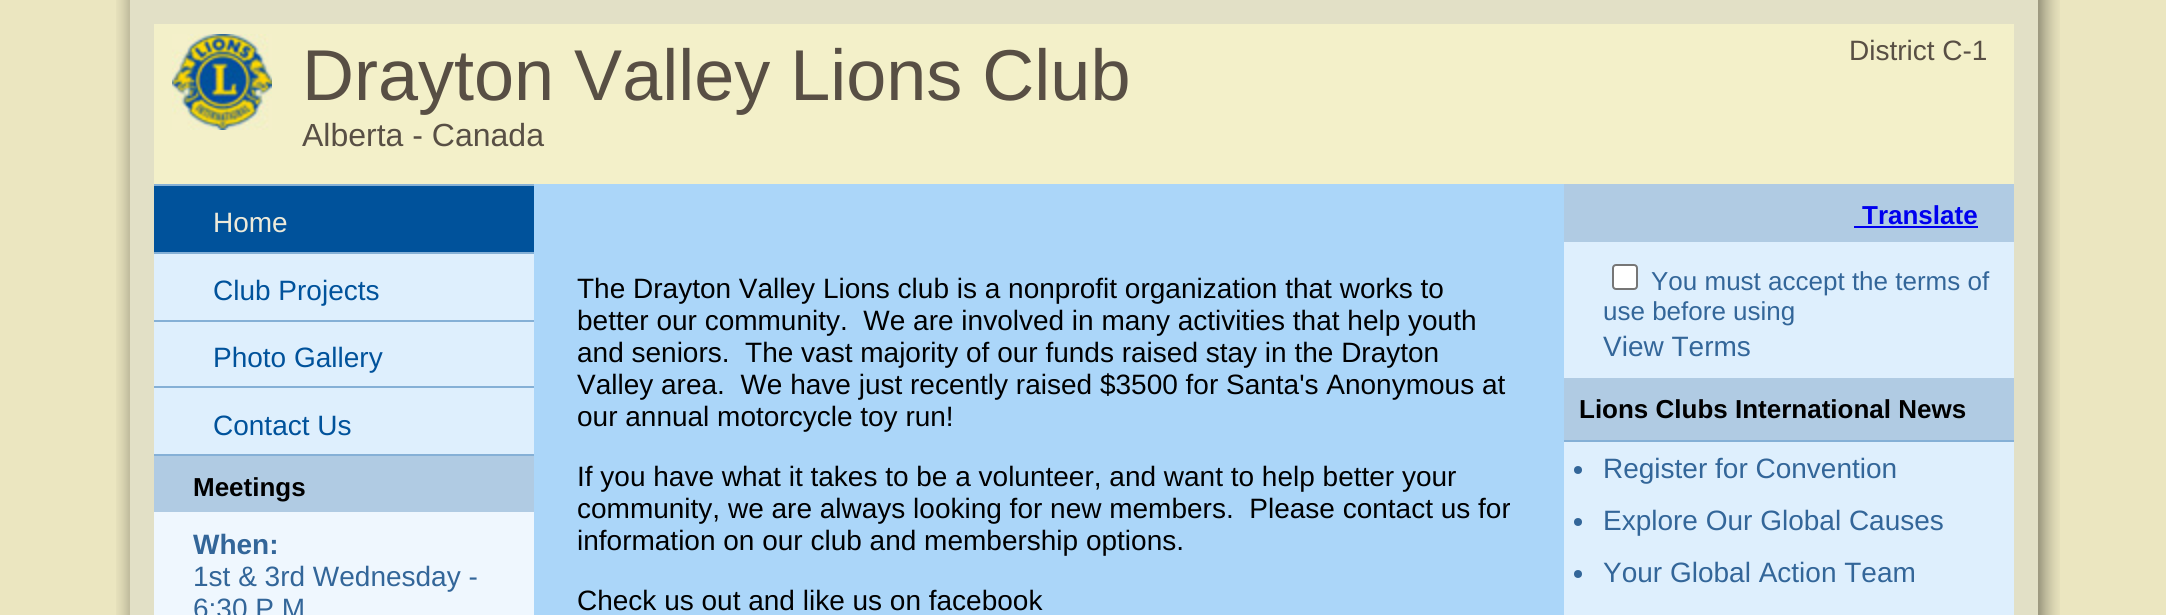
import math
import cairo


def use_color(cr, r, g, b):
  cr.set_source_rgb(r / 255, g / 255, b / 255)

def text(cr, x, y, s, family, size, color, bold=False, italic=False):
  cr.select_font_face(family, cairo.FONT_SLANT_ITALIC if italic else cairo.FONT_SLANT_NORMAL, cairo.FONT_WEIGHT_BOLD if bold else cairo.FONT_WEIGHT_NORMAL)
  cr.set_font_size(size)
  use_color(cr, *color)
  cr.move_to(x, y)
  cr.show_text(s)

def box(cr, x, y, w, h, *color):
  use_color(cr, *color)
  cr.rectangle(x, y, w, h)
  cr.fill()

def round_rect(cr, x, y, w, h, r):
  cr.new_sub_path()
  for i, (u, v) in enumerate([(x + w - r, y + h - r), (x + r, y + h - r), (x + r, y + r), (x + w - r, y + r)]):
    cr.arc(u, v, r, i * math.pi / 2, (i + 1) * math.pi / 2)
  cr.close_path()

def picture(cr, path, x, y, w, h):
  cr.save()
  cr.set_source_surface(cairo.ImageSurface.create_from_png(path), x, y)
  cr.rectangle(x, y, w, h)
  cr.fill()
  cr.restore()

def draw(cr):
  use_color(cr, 235, 230, 192)
  cr.paint()
  picture(cr, "img_01.png", 116, 0, 14, 615)
  box(cr, 130, 0, 1908, 615, 226, 224, 198)
  box(cr, 154, 24, 1860, 160, 243, 240, 201)
  picture(cr, "img_02.png", 172, 34, 100, 96)
  box(cr, 534, 184, 1030, 431, 171, 214, 249)
  box(cr, 154, 184, 380, 2, 133, 176, 214)
  box(cr, 154, 252, 380, 2, 133, 176, 214)
  box(cr, 154, 186, 380, 66, 0, 82, 155)
  box(cr, 154, 320, 380, 2, 133, 176, 214)
  box(cr, 154, 254, 380, 66, 222, 239, 253)
  box(cr, 154, 386, 380, 2, 133, 176, 214)
  box(cr, 154, 322, 380, 64, 222, 239, 253)
  box(cr, 154, 454, 380, 2, 133, 176, 214)
  box(cr, 154, 388, 380, 66, 222, 239, 253)
  box(cr, 154, 512, 380, 103, 239, 247, 254)
  box(cr, 154, 456, 380, 56, 176, 203, 227)
  box(cr, 1564, 242, 450, 136, 222, 239, 253)
  box(cr, 1564, 184, 450, 58, 176, 203, 227)
  box(cr, 1854, 226, 124, 2, 0, 0, 238)
  use_color(cr, 255, 255, 255)
  round_rect(cr, 1613, 265, 24, 24, 3)
  cr.fill_preserve()
  use_color(cr, 118, 118, 118)
  cr.stroke()
  box(cr, 1564, 442, 450, 173, 222, 239, 253)
  box(cr, 1564, 378, 450, 62, 176, 203, 227)
  box(cr, 1564, 440, 450, 2, 133, 176, 214)
  use_color(cr, 51, 102, 153)
  cr.arc(1578, 470, 4, 0, 2 * math.pi)
  cr.fill()
  cr.arc(1578, 522, 4, 0, 2 * math.pi)
  cr.fill()
  cr.arc(1578, 574, 4, 0, 2 * math.pi)
  cr.fill()
  picture(cr, "img_03.png", 2038, 0, 22, 615)
  text(cr, 302, 100, "Drayton Valley Lions Club", "Liberation Sans", 72, (88, 79, 68))
  text(cr, 302, 146, "Alberta - Canada", "Liberation Sans", 32, (88, 79, 68))
  text(cr, 1849, 60, "District C-1", "Liberation Sans", 28, (88, 79, 68))
  text(cr, 213, 232, "Home", "Liberation Sans", 28, (237, 234, 218))
  text(cr, 213, 300, "Club Projects", "Liberation Sans", 28, (0, 82, 155))
  text(cr, 213, 367, "Photo Gallery", "Liberation Sans", 28, (0, 82, 155))
  text(cr, 213, 435, "Contact Us", "Liberation Sans", 28, (0, 82, 155))
  text(cr, 193, 496, "Meetings", "Liberation Sans", 26, (0, 0, 0), bold=True)
  text(cr, 193, 554, "When:", "Liberation Sans", 28, (51, 102, 153), bold=True)
  text(cr, 193, 586, "1st & 3rd Wednesday -", "Liberation Sans", 28, (51, 102, 153))
  text(cr, 193, 618, "6:30 P.M", "Liberation Sans", 28, (51, 102, 153))
  text(cr, 577, 298, "The Drayton Valley Lions club is a nonprofit organization that works to", "Liberation Sans", 28, (0, 0, 0))
  text(cr, 577, 330, "better our community.  We are involved in many activities that help youth", "Liberation Sans", 28, (0, 0, 0))
  text(cr, 577, 362, "and seniors.  The vast majority of our funds raised stay in the Drayton", "Liberation Sans", 28, (0, 0, 0))
  text(cr, 577, 394, "Valley area.  We have just recently raised $3500 for Santa's Anonymous at", "Liberation Sans", 28, (0, 0, 0))
  text(cr, 577, 426, "our annual motorcycle toy run!", "Liberation Sans", 28, (0, 0, 0))
  text(cr, 577, 486, "If you have what it takes to be a volunteer, and want to help better your", "Liberation Sans", 28, (0, 0, 0))
  text(cr, 577, 518, "community, we are always looking for new members.  Please contact us for", "Liberation Sans", 28, (0, 0, 0))
  text(cr, 577, 550, "information on our club and membership options.", "Liberation Sans", 28, (0, 0, 0))
  text(cr, 577, 610, "Check us out and like us on facebook", "Liberation Sans", 28, (0, 0, 0))
  text(cr, 1862, 224, "Translate", "Liberation Sans", 26, (0, 0, 238), bold=True)
  text(cr, 1651, 290, "You must accept the terms of", "Liberation Sans", 26, (51, 102, 153))
  text(cr, 1603, 320, "use before using", "Liberation Sans", 26, (51, 102, 153))
  text(cr, 1603, 356, "View Terms", "Liberation Sans", 28, (51, 102, 153))
  text(cr, 1579, 418, "Lions Clubs International News", "Liberation Sans", 26, (0, 0, 0), bold=True)
  text(cr, 1603, 478, "Register for Convention", "Liberation Sans", 28, (51, 102, 153))
  text(cr, 1603, 530, "Explore Our Global Causes", "Liberation Sans", 28, (51, 102, 153))
  text(cr, 1603, 582, "Your Global Action Team", "Liberation Sans", 28, (51, 102, 153))


surface = cairo.ImageSurface(cairo.FORMAT_RGB24, 2166, 615)
cr = cairo.Context(surface)
options = cairo.FontOptions()
options.set_hint_metrics(cairo.HINT_METRICS_OFF)
options.set_hint_style(cairo.HINT_STYLE_NONE)
cr.set_font_options(options)
cr.set_miter_limit(4)
draw(cr)
surface.write_to_png("out.png")
